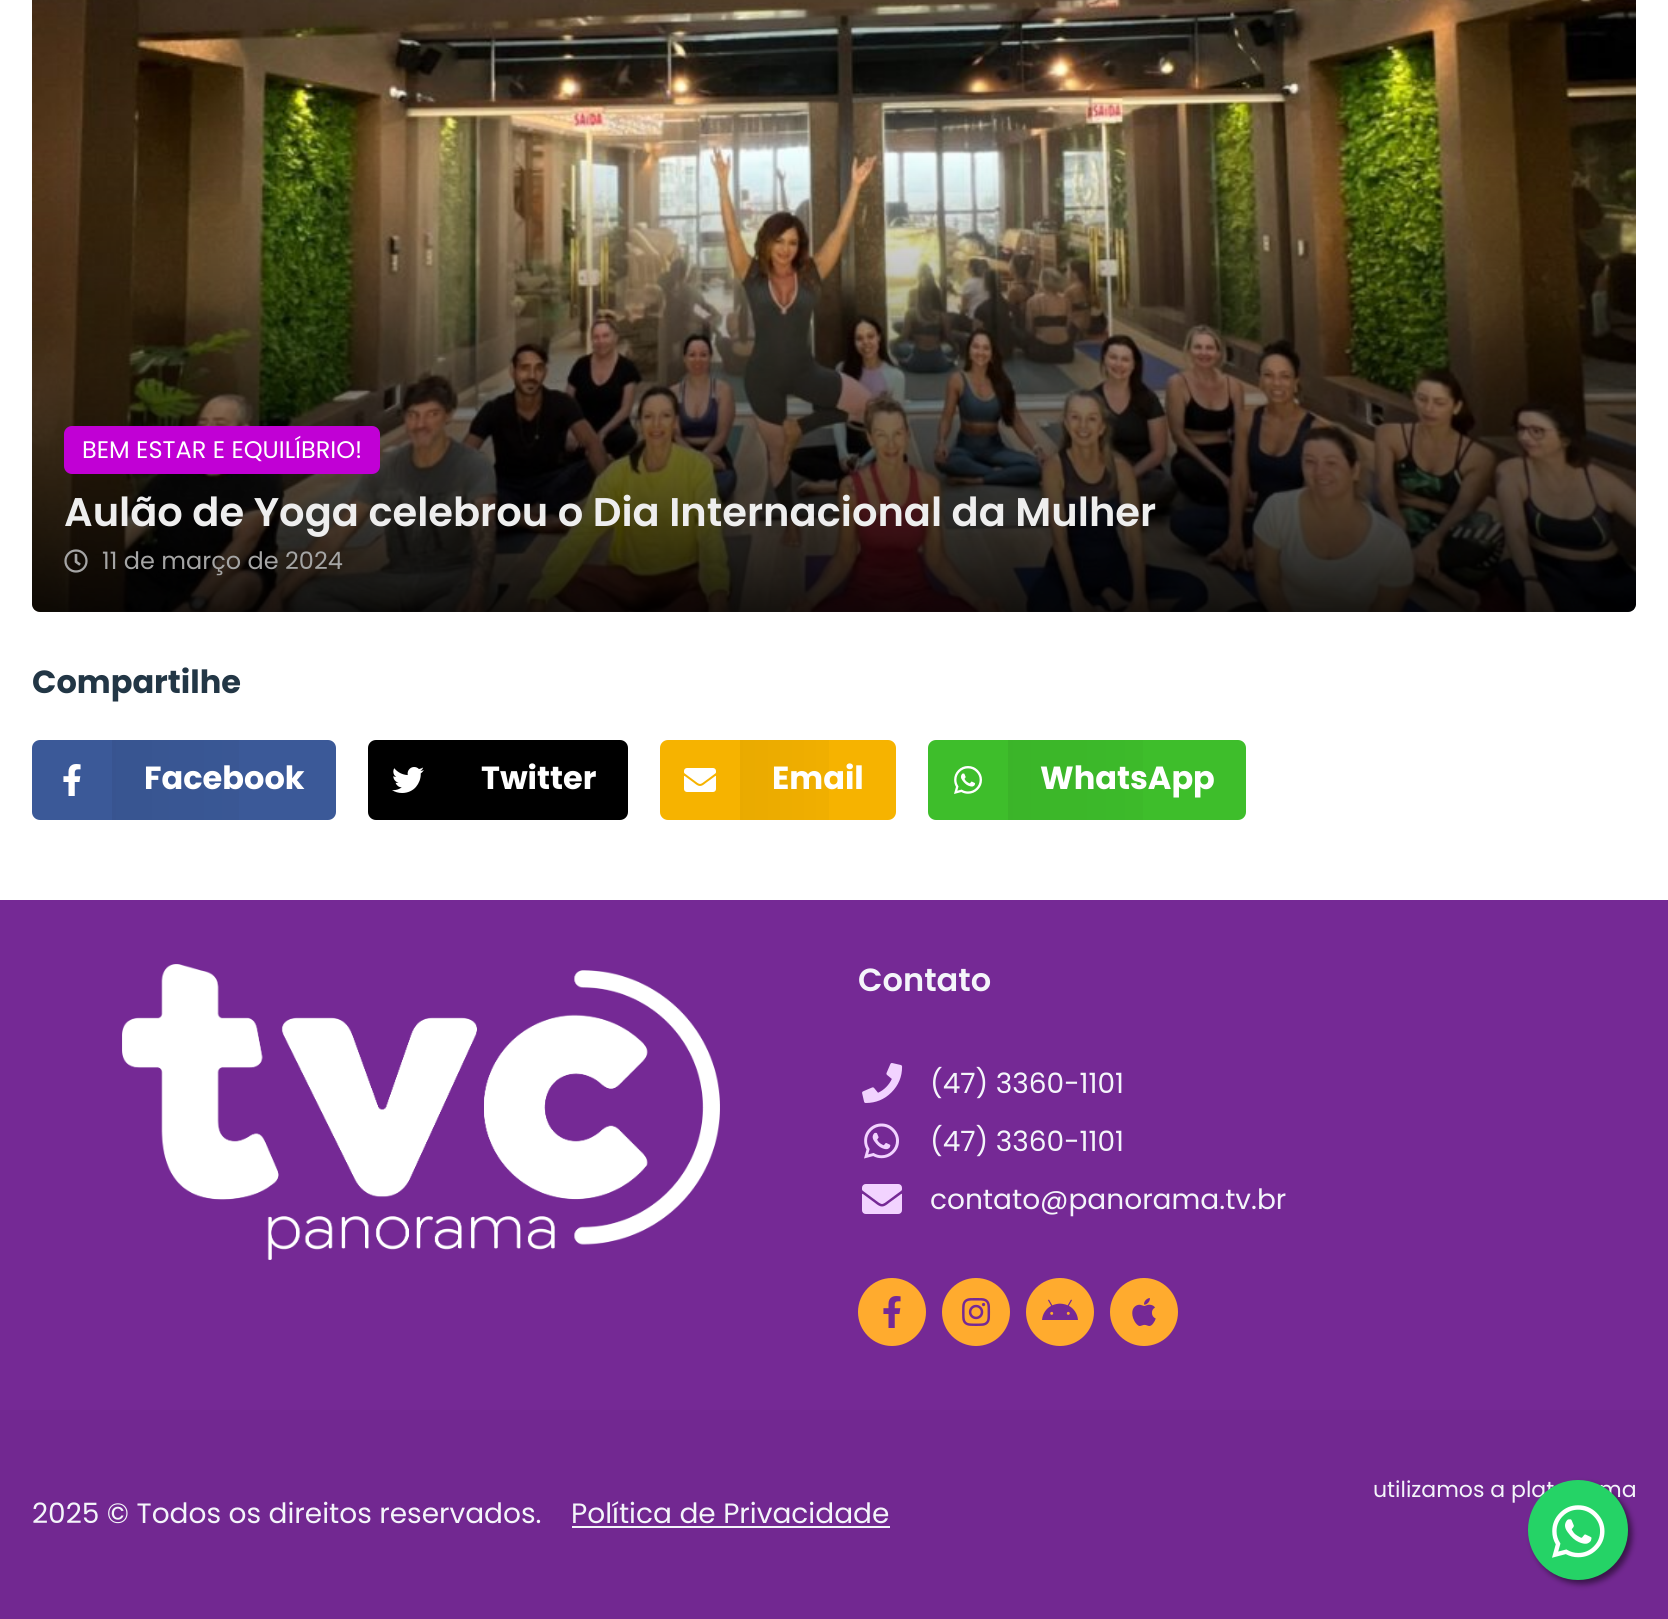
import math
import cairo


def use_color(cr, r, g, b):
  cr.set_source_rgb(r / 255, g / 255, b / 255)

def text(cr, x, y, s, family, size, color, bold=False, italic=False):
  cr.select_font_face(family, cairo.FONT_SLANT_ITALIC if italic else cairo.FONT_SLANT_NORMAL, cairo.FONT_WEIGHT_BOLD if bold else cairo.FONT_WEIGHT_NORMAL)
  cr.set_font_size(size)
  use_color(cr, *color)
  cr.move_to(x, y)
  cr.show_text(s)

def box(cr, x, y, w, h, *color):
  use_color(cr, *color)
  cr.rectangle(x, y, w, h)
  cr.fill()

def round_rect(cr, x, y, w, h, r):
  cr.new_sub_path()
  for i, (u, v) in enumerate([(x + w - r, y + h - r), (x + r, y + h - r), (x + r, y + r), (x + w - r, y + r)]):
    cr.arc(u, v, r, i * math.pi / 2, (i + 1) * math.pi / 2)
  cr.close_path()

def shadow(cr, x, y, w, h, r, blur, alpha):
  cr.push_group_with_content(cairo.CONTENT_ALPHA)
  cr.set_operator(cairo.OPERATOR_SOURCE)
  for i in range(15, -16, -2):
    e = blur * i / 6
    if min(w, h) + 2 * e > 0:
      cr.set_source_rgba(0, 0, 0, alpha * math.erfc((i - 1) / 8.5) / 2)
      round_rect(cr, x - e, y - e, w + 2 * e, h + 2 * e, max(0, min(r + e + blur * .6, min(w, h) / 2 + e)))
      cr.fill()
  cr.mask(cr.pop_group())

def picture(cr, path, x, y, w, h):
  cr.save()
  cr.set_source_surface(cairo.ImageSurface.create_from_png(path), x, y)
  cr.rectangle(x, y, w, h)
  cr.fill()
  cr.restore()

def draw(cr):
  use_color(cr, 255, 255, 255)
  cr.paint()
  use_color(cr, 246, 248, 250)
  round_rect(cr, 32, -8, 1604, 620, 8)
  cr.fill()
  picture(cr, "img_01.png", 32, 0, 1604, 612)
  cr.save()
  round_rect(cr, 32, -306, 1604, 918, 8)
  cr.clip()
  gradient = cairo.LinearGradient(834, -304, 834, 614)
  gradient.add_color_stop_rgba(0.5, 0, 0, 0, 0)
  gradient.add_color_stop_rgba(1, 0, 0, 0, 0.9)
  cr.set_source(gradient)
  round_rect(cr, 32, -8, 1604, 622, 8)
  cr.fill()
  cr.restore()
  use_color(cr, 193, 0, 213)
  round_rect(cr, 64, 426, 316, 48, 8)
  cr.fill()
  picture(cr, "img_02.png", 64, 549, 24, 24)
  use_color(cr, 59, 89, 152)
  round_rect(cr, 32, 740, 304, 80, 8)
  cr.fill()
  picture(cr, "img_03.png", 63, 764, 18, 32)
  gradient = cairo.LinearGradient(112, 780, 336, 780)
  gradient.add_color_stop_rgba(0, 0, 0, 0, 0.05)
  gradient.add_color_stop_rgba(1, 0, 0, 0, 0)
  cr.set_source(gradient)
  cr.rectangle(112, 740, 127, 80)
  cr.fill()
  use_color(cr, 0, 0, 0)
  round_rect(cr, 368, 740, 260, 80, 8)
  cr.fill()
  picture(cr, "img_04.png", 392, 767, 32, 26)
  use_color(cr, 246, 179, 0)
  round_rect(cr, 660, 740, 236, 80, 8)
  cr.fill()
  picture(cr, "img_05.png", 684, 768, 32, 24)
  gradient = cairo.LinearGradient(740, 780, 896, 780)
  gradient.add_color_stop_rgba(0, 0, 0, 0, 0.05)
  gradient.add_color_stop_rgba(1, 0, 0, 0, 0)
  cr.set_source(gradient)
  cr.rectangle(740, 740, 89, 80)
  cr.fill()
  use_color(cr, 62, 190, 43)
  round_rect(cr, 928, 740, 318, 80, 8)
  cr.fill()
  picture(cr, "img_06.png", 954, 766, 28, 28)
  gradient = cairo.LinearGradient(1008, 780, 1246, 780)
  gradient.add_color_stop_rgba(0, 0, 0, 0, 0.05)
  gradient.add_color_stop_rgba(1, 0, 0, 0, 0)
  cr.set_source(gradient)
  cr.rectangle(1008, 740, 135, 80)
  cr.fill()
  box(cr, 0, 900, 1668, 510, 117, 41, 149)
  picture(cr, "img_07.png", 122, 964, 598, 296)
  picture(cr, "img_08.png", 862, 1063, 41, 40)
  picture(cr, "img_09.png", 864, 1123, 35, 36)
  picture(cr, "img_10.png", 862, 1184, 40, 30)
  use_color(cr, 255, 171, 46)
  cr.arc(892, 1312, 34, 0, 2 * math.pi)
  cr.fill()
  picture(cr, "img_11.png", 883, 1296, 18, 32)
  cr.arc(976, 1312, 34, 0, 2 * math.pi)
  cr.fill()
  picture(cr, "img_12.png", 962, 1298, 29, 28)
  cr.arc(1060, 1312, 34, 0, 2 * math.pi)
  cr.fill()
  picture(cr, "img_13.png", 1042, 1299, 36, 21)
  cr.arc(1144, 1312, 34, 0, 2 * math.pi)
  cr.fill()
  picture(cr, "img_14.png", 1132, 1298, 24, 28)
  box(cr, 0, 1410, 1668, 209, 114, 40, 145)
  box(cr, 572, 1526, 318, 2, 244, 245, 250)
  use_color(cr, 0, 0, 0)
  shadow(cr, 1532, 1484, 100, 100, 50, 3, 0.5)
  text(cr, 82, 458, "BEM ESTAR E EQUILÍBRIO!", "Poppins", 24, (255, 255, 255))
  text(cr, 64, 526, "Aulão de Yoga celebrou o Dia Internacional da Mulher", "Poppins SemiBold", 40, (238, 238, 238))
  text(cr, 102, 569, "11 de março de 2024", "Poppins", 24, (165, 165, 165))
  text(cr, 32, 693, "Compartilhe", "Poppins", 32, (34, 54, 69), bold=True)
  text(cr, 144, 789, "Facebook", "Poppins", 32, (255, 255, 255), bold=True)
  text(cr, 481, 789, "Twitter", "Poppins", 32, (255, 255, 255), bold=True)
  text(cr, 772, 789, "Email", "Poppins", 32, (255, 255, 255), bold=True)
  text(cr, 1040, 789, "WhatsApp", "Poppins", 32, (255, 255, 255), bold=True)
  text(cr, 858, 991, "Contato", "Poppins SemiBold", 32, (244, 245, 250))
  text(cr, 930, 1093, "(47) 3360-1101", "Poppins", 28, (244, 245, 250))
  text(cr, 930, 1151, "(47) 3360-1101", "Poppins", 28, (244, 245, 250))
  text(cr, 930, 1209, "contato@panorama.tv.br", "Poppins", 28, (244, 245, 250))
  text(cr, 1373, 1497, "utilizamos a plat", "Poppins", 22, (244, 245, 250))
  text(cr, 1599, 1497, "ma", "Poppins", 22, (244, 245, 250))
  text(cr, 32, 1523, "2025 © Todos os direitos reservados.", "Poppins", 28, (244, 245, 250))
  text(cr, 571, 1523, "Política de Privacidade", "Poppins", 28, (244, 245, 250))
  use_color(cr, 37, 211, 102)
  cr.new_path()
  cr.arc(1578, 1530, 50, 0, 2 * math.pi)
  cr.fill()
  picture(cr, "img_15.png", 1552, 1505, 53, 53)


surface = cairo.ImageSurface(cairo.FORMAT_RGB24, 1668, 1619)
cr = cairo.Context(surface)
options = cairo.FontOptions()
options.set_hint_metrics(cairo.HINT_METRICS_OFF)
options.set_hint_style(cairo.HINT_STYLE_NONE)
cr.set_font_options(options)
cr.set_miter_limit(4)
draw(cr)
surface.write_to_png("out.png")
